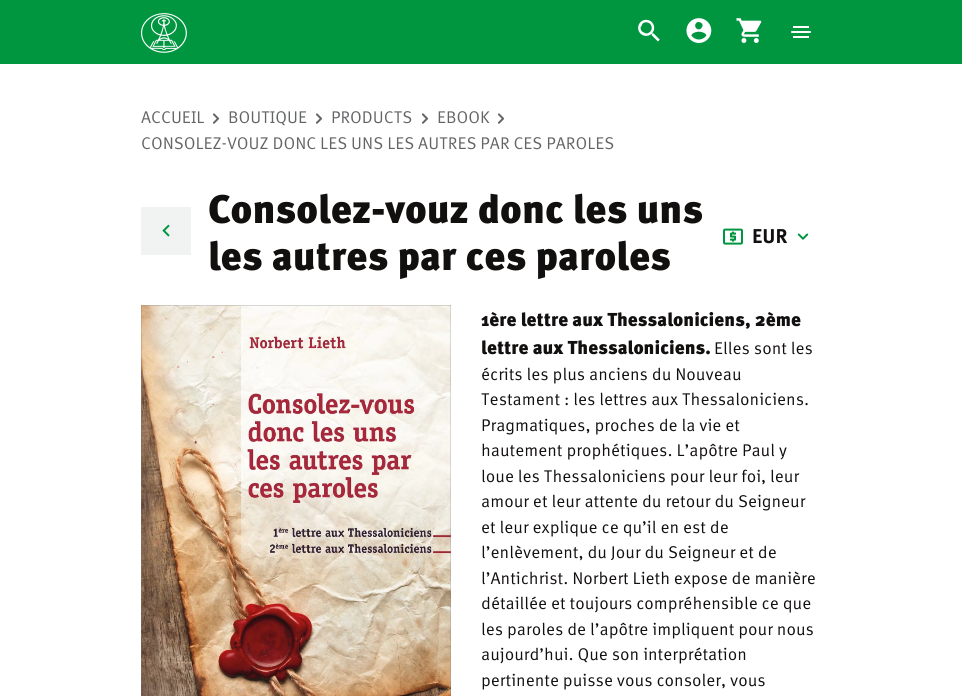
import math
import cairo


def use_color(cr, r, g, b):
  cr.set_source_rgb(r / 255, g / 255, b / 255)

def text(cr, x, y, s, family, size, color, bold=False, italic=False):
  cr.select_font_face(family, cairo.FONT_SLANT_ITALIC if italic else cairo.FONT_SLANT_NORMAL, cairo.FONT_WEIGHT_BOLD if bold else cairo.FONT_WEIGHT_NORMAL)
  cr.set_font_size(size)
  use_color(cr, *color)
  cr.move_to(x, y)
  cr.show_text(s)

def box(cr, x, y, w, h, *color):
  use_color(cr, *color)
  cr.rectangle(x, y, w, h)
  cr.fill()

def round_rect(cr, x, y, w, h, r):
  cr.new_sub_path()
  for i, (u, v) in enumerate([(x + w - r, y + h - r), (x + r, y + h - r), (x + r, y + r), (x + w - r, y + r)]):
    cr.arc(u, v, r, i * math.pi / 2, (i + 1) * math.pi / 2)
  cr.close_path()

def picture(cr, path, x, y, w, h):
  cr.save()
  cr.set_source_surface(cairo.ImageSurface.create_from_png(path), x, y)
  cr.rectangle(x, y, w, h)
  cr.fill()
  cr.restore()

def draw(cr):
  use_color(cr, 255, 255, 255)
  cr.paint()
  box(cr, 0, 0, 962, 64, 0, 150, 64)
  picture(cr, "img_01.png", 141, 13, 46, 40)
  picture(cr, "img_02.png", 638, 19, 22, 23)
  picture(cr, "img_03.png", 686, 18, 26, 25)
  picture(cr, "img_04.png", 736, 18, 26, 25)
  use_color(cr, 255, 255, 255)
  round_rect(cr, 791, 31, 20, 2, 1)
  cr.fill()
  box(cr, 793, 26, 16, 2, 255, 255, 255)
  box(cr, 793, 36, 16, 2, 255, 255, 255)
  picture(cr, "img_05.png", 212, 113, 8, 11)
  picture(cr, "img_05.png", 315, 113, 8, 11)
  picture(cr, "img_05.png", 421, 113, 8, 11)
  picture(cr, "img_05.png", 497, 113, 8, 11)
  box(cr, 141, 207, 50, 48, 241, 242, 242)
  picture(cr, "img_06.png", 162, 224, 8, 13)
  picture(cr, "img_07.png", 723, 228, 20, 17)
  picture(cr, "img_08.png", 797, 233, 12, 7)
  picture(cr, "img_09.png", 141, 305, 310, 391)
  text(cr, 141, 123, "ACCUEIL", "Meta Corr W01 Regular", 17, (99, 100, 102))
  text(cr, 228, 123, "BOUTIQUE", "Meta Corr W01 Regular", 17, (99, 100, 102))
  text(cr, 331, 123, "PRODUCTS", "Meta Corr W01 Regular", 17, (99, 100, 102))
  text(cr, 437, 123, "EBOOK", "Meta Corr W01 Regular", 17, (99, 100, 102))
  text(cr, 141, 149, "CONSOLEZ-VOUZ DONC LES UNS LES AUTRES PAR CES PAROLES", "Meta Corr W01 Regular", 17, (99, 100, 102))
  text(cr, 208, 223, "Consolez-vouz donc les uns", "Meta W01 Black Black", 40, (18, 15, 15))
  text(cr, 208, 270, "les autres par ces paroles", "Meta W01 Black Black", 40, (18, 15, 15))
  text(cr, 752, 243, "EUR", "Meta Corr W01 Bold", 20, (18, 15, 15), bold=True)
  text(cr, 481, 326, "1ère lettre aux Thessaloniciens, 2ème", "Meta W01 Black Black", 18.75, (18, 15, 15))
  text(cr, 481, 354, "lettre aux Thessaloniciens.", "Meta W01 Black Black", 18.75, (18, 15, 15))
  text(cr, 714, 354, "Elles sont les", "Meta Corr W01 Regular", 17, (18, 15, 15))
  text(cr, 481, 380, "écrits les plus anciens du Nouveau", "Meta Corr W01 Regular", 17, (18, 15, 15))
  text(cr, 481, 405, "Testament : les lettres aux Thessaloniciens.", "Meta Corr W01 Regular", 17, (18, 15, 15))
  text(cr, 481, 431, "Pragmatiques, proches de la vie et", "Meta Corr W01 Regular", 17, (18, 15, 15))
  text(cr, 481, 456, "hautement prophétiques. L’apôtre Paul y", "Meta Corr W01 Regular", 17, (18, 15, 15))
  text(cr, 481, 482, "loue les Thessaloniciens pour leur foi, leur", "Meta Corr W01 Regular", 17, (18, 15, 15))
  text(cr, 481, 507, "amour et leur attente du retour du Seigneur", "Meta Corr W01 Regular", 17, (18, 15, 15))
  text(cr, 481, 533, "et leur explique ce qu’il en est de", "Meta Corr W01 Regular", 17, (18, 15, 15))
  text(cr, 481, 558, "l’enlèvement, du Jour du Seigneur et de", "Meta Corr W01 Regular", 17, (18, 15, 15))
  text(cr, 481, 584, "l’Antichrist. Norbert Lieth expose de manière", "Meta Corr W01 Regular", 17, (18, 15, 15))
  text(cr, 481, 609, "détaillée et toujours compréhensible ce que", "Meta Corr W01 Regular", 17, (18, 15, 15))
  text(cr, 481, 635, "les paroles de l’apôtre impliquent pour nous", "Meta Corr W01 Regular", 17, (18, 15, 15))
  text(cr, 481, 660, "aujourd’hui. Que son interprétation", "Meta Corr W01 Regular", 17, (18, 15, 15))
  text(cr, 481, 686, "pertinente puisse vous consoler, vous", "Meta Corr W01 Regular", 17, (18, 15, 15))


surface = cairo.ImageSurface(cairo.FORMAT_RGB24, 962, 696)
cr = cairo.Context(surface)
options = cairo.FontOptions()
options.set_hint_metrics(cairo.HINT_METRICS_OFF)
options.set_hint_style(cairo.HINT_STYLE_NONE)
cr.set_font_options(options)
cr.set_miter_limit(4)
draw(cr)
surface.write_to_png("out.png")
